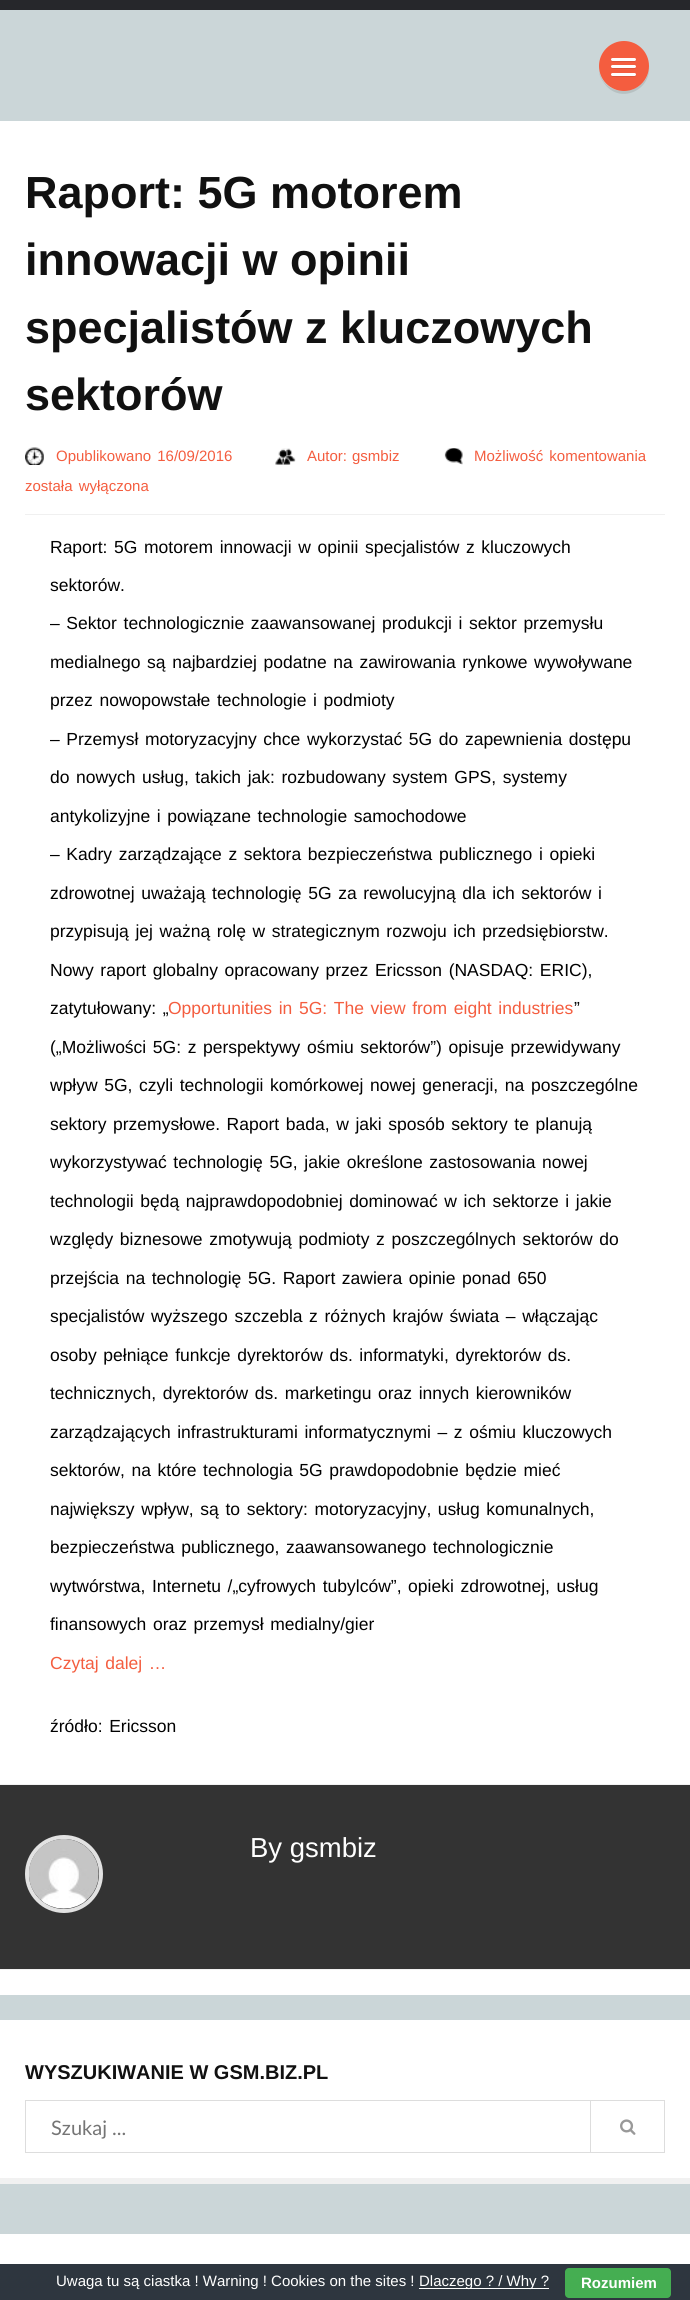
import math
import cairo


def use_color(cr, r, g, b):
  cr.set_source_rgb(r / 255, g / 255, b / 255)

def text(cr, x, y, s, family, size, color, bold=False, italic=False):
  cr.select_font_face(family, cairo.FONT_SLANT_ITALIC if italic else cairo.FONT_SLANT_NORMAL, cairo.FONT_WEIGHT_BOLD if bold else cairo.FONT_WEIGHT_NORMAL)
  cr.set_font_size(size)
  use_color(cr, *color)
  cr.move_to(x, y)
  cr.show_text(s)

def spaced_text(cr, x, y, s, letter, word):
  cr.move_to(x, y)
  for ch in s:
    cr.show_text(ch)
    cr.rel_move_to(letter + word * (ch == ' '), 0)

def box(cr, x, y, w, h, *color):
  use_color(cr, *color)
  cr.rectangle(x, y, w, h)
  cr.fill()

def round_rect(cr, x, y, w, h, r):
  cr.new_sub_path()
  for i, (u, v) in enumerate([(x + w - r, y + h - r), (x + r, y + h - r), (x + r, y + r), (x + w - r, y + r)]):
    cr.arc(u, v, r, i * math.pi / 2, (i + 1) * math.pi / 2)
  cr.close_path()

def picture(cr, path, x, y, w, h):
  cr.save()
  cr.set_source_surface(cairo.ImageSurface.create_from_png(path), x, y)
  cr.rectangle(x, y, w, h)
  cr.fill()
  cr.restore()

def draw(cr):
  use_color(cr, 203, 214, 216)
  cr.paint()
  box(cr, 0, 0, 690, 10, 38, 39, 43)
  use_color(cr, 183, 193, 194)
  cr.new_path()
  cr.move_to(599, 70)
  cr.curve_to(599, 75, 601, 79, 604, 83)
  cr.curve_to(619, 105, 652, 91, 649, 65)
  cr.curve_to(650, 96, 604, 101, 599, 70)
  cr.close_path()
  cr.fill()
  use_color(cr, 244, 93, 63)
  cr.arc(624, 66, 25, 0, 2 * math.pi)
  cr.fill()
  use_color(cr, 220, 84, 57)
  cr.new_path()
  cr.move_to(611.5, 59.5)
  cr.curve_to(611, 60, 611, 61, 611.5, 61.5)
  cr.curve_to(612.5, 62.5, 621.5, 62, 623.5, 62)
  cr.line_to(631, 62)
  cr.curve_to(631, 62, 637.5, 62.5, 636, 59.5)
  cr.curve_to(635.5, 60, 612.5, 60.5, 612, 60)
  cr.close_path()
  cr.fill()
  use_color(cr, 255, 255, 255)
  round_rect(cr, 611, 58, 25, 3, 1.5)
  cr.fill()
  use_color(cr, 220, 84, 57)
  cr.new_path()
  cr.move_to(611.5, 66.5)
  cr.curve_to(609, 69.5, 616, 69, 616, 69)
  cr.line_to(631, 69)
  cr.curve_to(631.5, 69, 636.5, 70, 636, 67)
  cr.line_to(635, 67.5)
  cr.line_to(612.5, 67.5)
  cr.curve_to(612, 67.5, 611.5, 67, 611.5, 66.5)
  cr.close_path()
  cr.fill()
  use_color(cr, 255, 255, 255)
  round_rect(cr, 611, 65, 25, 3, 1.5)
  cr.fill()
  use_color(cr, 220, 84, 57)
  cr.new_path()
  cr.move_to(611.5, 74.5)
  cr.curve_to(611, 75, 611, 76, 611.5, 76.5)
  cr.curve_to(612.5, 77.5, 621.5, 77, 623.5, 77)
  cr.line_to(631, 77)
  cr.curve_to(631, 77, 637.5, 77.5, 636, 74.5)
  cr.curve_to(635.5, 75, 612.5, 75.5, 612, 75)
  cr.close_path()
  cr.fill()
  use_color(cr, 255, 255, 255)
  round_rect(cr, 611, 73, 25, 3, 1.5)
  cr.fill()
  box(cr, 0, 121, 690, 1874, 255, 255, 255)
  box(cr, 25, 514, 640, 1, 240, 240, 240)
  picture(cr, "img_01.png", 25, 447, 19, 18)
  picture(cr, "img_02.png", 275, 448, 21, 17)
  picture(cr, "img_03.png", 444, 448, 19, 17)
  box(cr, 0, 1785, 690, 184, 51, 51, 51)
  box(cr, 0, 1784, 690, 1, 241, 241, 241)
  box(cr, 0, 1969, 690, 1, 241, 241, 241)
  cr.arc(64, 1874, 37, 0, 2 * math.pi)
  use_color(cr, 226, 226, 226)
  cr.set_line_width(4)
  cr.stroke()
  picture(cr, "img_04.png", 29, 1839, 70, 70)
  box(cr, 0, 2020, 690, 158, 255, 255, 255)
  box(cr, 0, 2178, 690, 6, 241, 241, 241)
  cr.rectangle(25.5, 2100.5, 639, 52)
  use_color(cr, 221, 221, 221)
  cr.set_line_width(1)
  cr.stroke()
  box(cr, 590, 2100, 1, 53, 221, 221, 221)
  picture(cr, "img_05.png", 620, 2119, 16, 16)
  box(cr, 0, 2234, 690, 30, 255, 255, 255)
  box(cr, 0, 2264, 690, 36, 46, 54, 63)
  box(cr, 419, 2288, 130, 1, 255, 255, 255)
  use_color(cr, 69, 174, 82)
  round_rect(cr, 565, 2268, 106, 30, 4)
  cr.fill()
  text(cr, 25, 208, "Raport: 5G motorem", "Liberation Sans", 45, (17, 17, 17), bold=True)
  text(cr, 25, 275, "innowacji w opinii", "Liberation Sans", 45, (17, 17, 17), bold=True)
  text(cr, 25, 343, "specjalistów z kluczowych", "Liberation Sans", 45, (17, 17, 17), bold=True)
  text(cr, 25, 410, "sektorów", "Liberation Sans", 45, (17, 17, 17), bold=True)
  cr.select_font_face("Liberation Sans")
  cr.set_font_size(15)
  use_color(cr, 244, 93, 63)
  spaced_text(cr, 56, 461, "Opublikowano 16/09/2016", 0, 2)
  text(cr, 307, 461, "Autor:", "Liberation Sans", 15, (244, 93, 63))
  text(cr, 352, 461, "gsmbiz", "Liberation Sans", 15, (244, 93, 63))
  spaced_text(cr, 474, 461, "Możliwość komentowania", 0, 2)
  spaced_text(cr, 25, 491, "została wyłączona", 0, 2)
  cr.set_font_size(17.5)
  use_color(cr, 0, 0, 0)
  spaced_text(cr, 50, 553, "Raport: 5G motorem innowacji w opinii specjalistów z kluczowych", 0, 1.75)
  text(cr, 50, 591, "sektorów.", "Liberation Sans", 17.5, (0, 0, 0))
  spaced_text(cr, 50, 629, "– Sektor technologicznie zaawansowanej produkcji i sektor przemysłu", 0, 1.75)
  spaced_text(cr, 50, 668, "medialnego są najbardziej podatne na zawirowania rynkowe wywoływane", 0, 1.75)
  spaced_text(cr, 50, 706, "przez nowopowstałe technologie i podmioty", 0, 1.75)
  spaced_text(cr, 50, 745, "– Przemysł motoryzacyjny chce wykorzystać 5G do zapewnienia dostępu", 0, 1.75)
  spaced_text(cr, 50, 783, "do nowych usług, takich jak: rozbudowany system GPS, systemy", 0, 1.75)
  spaced_text(cr, 50, 822, "antykolizyjne i powiązane technologie samochodowe", 0, 1.75)
  spaced_text(cr, 50, 860, "– Kadry zarządzające z sektora bezpieczeństwa publicznego i opieki", 0, 1.75)
  spaced_text(cr, 50, 899, "zdrowotnej uważają technologię 5G za rewolucyjną dla ich sektorów i", 0, 1.75)
  spaced_text(cr, 50, 937, "przypisują jej ważną rolę w strategicznym rozwoju ich przedsiębiorstw.", 0, 1.75)
  spaced_text(cr, 50, 976, "Nowy raport globalny opracowany przez Ericsson (NASDAQ: ERIC),", 0, 1.75)
  spaced_text(cr, 50, 1014, "zatytułowany: „", 0, 1.75)
  use_color(cr, 244, 93, 63)
  spaced_text(cr, 168, 1014, "Opportunities in 5G: The view from eight industries", 0, 1.75)
  text(cr, 574, 1014, "”", "Liberation Sans", 17.5, (0, 0, 0))
  spaced_text(cr, 50, 1053, "(„Możliwości 5G: z perspektywy ośmiu sektorów”) opisuje przewidywany", 0, 1.75)
  spaced_text(cr, 50, 1091, "wpływ 5G, czyli technologii komórkowej nowej generacji, na poszczególne", 0, 1.75)
  spaced_text(cr, 50, 1130, "sektory przemysłowe. Raport bada, w jaki sposób sektory te planują", 0, 1.75)
  spaced_text(cr, 50, 1168, "wykorzystywać technologię 5G, jakie określone zastosowania nowej", 0, 1.75)
  spaced_text(cr, 50, 1207, "technologii będą najprawdopodobniej dominować w ich sektorze i jakie", 0, 1.75)
  spaced_text(cr, 50, 1245, "względy biznesowe zmotywują podmioty z poszczególnych sektorów do", 0, 1.75)
  spaced_text(cr, 50, 1284, "przejścia na technologię 5G. Raport zawiera opinie ponad 650", 0, 1.75)
  spaced_text(cr, 50, 1322, "specjalistów wyższego szczebla z różnych krajów świata – włączając", 0, 1.75)
  spaced_text(cr, 50, 1361, "osoby pełniące funkcje dyrektorów ds. informatyki, dyrektorów ds.", 0, 1.75)
  spaced_text(cr, 50, 1399, "technicznych, dyrektorów ds. marketingu oraz innych kierowników", 0, 1.75)
  spaced_text(cr, 50, 1438, "zarządzających infrastrukturami informatycznymi – z ośmiu kluczowych", 0, 1.75)
  spaced_text(cr, 50, 1476, "sektorów, na które technologia 5G prawdopodobnie będzie mieć", 0, 1.75)
  spaced_text(cr, 50, 1515, "największy wpływ, są to sektory: motoryzacyjny, usług komunalnych,", 0, 1.75)
  spaced_text(cr, 50, 1553, "bezpieczeństwa publicznego, zaawansowanego technologicznie", 0, 1.75)
  spaced_text(cr, 50, 1592, "wytwórstwa, Internetu /„cyfrowych tubylców”, opieki zdrowotnej, usług", 0, 1.75)
  spaced_text(cr, 50, 1630, "finansowych oraz przemysł medialny/gier", 0, 1.75)
  use_color(cr, 244, 93, 63)
  spaced_text(cr, 50, 1669, "Czytaj dalej …", 0, 1.75)
  use_color(cr, 0, 0, 0)
  spaced_text(cr, 50, 1732, "źródło: Ericsson", 0, 1.75)
  text(cr, 250, 1857, "By gsmbiz", "Liberation Sans", 27.5, (255, 255, 255))
  text(cr, 25, 2079, "WYSZUKIWANIE W GSM.BIZ.PL", "Liberation Sans", 20, (17, 17, 17), bold=True)
  text(cr, 51, 2135, "Szukaj ...", "Lato", 20, (117, 117, 117))
  text(cr, 56, 2286, "Uwaga tu są ciastka ! Warning ! Cookies on the sites !", "Liberation Sans", 15, (255, 255, 255))
  text(cr, 419, 2286, "Dlaczego ? / Why ?", "Liberation Sans", 15, (255, 255, 255))
  text(cr, 581, 2288, "Rozumiem", "Liberation Sans", 15, (255, 255, 255), bold=True)


surface = cairo.ImageSurface(cairo.FORMAT_RGB24, 690, 2300)
cr = cairo.Context(surface)
options = cairo.FontOptions()
options.set_hint_metrics(cairo.HINT_METRICS_OFF)
options.set_hint_style(cairo.HINT_STYLE_NONE)
cr.set_font_options(options)
cr.set_miter_limit(4)
draw(cr)
surface.write_to_png("out.png")
